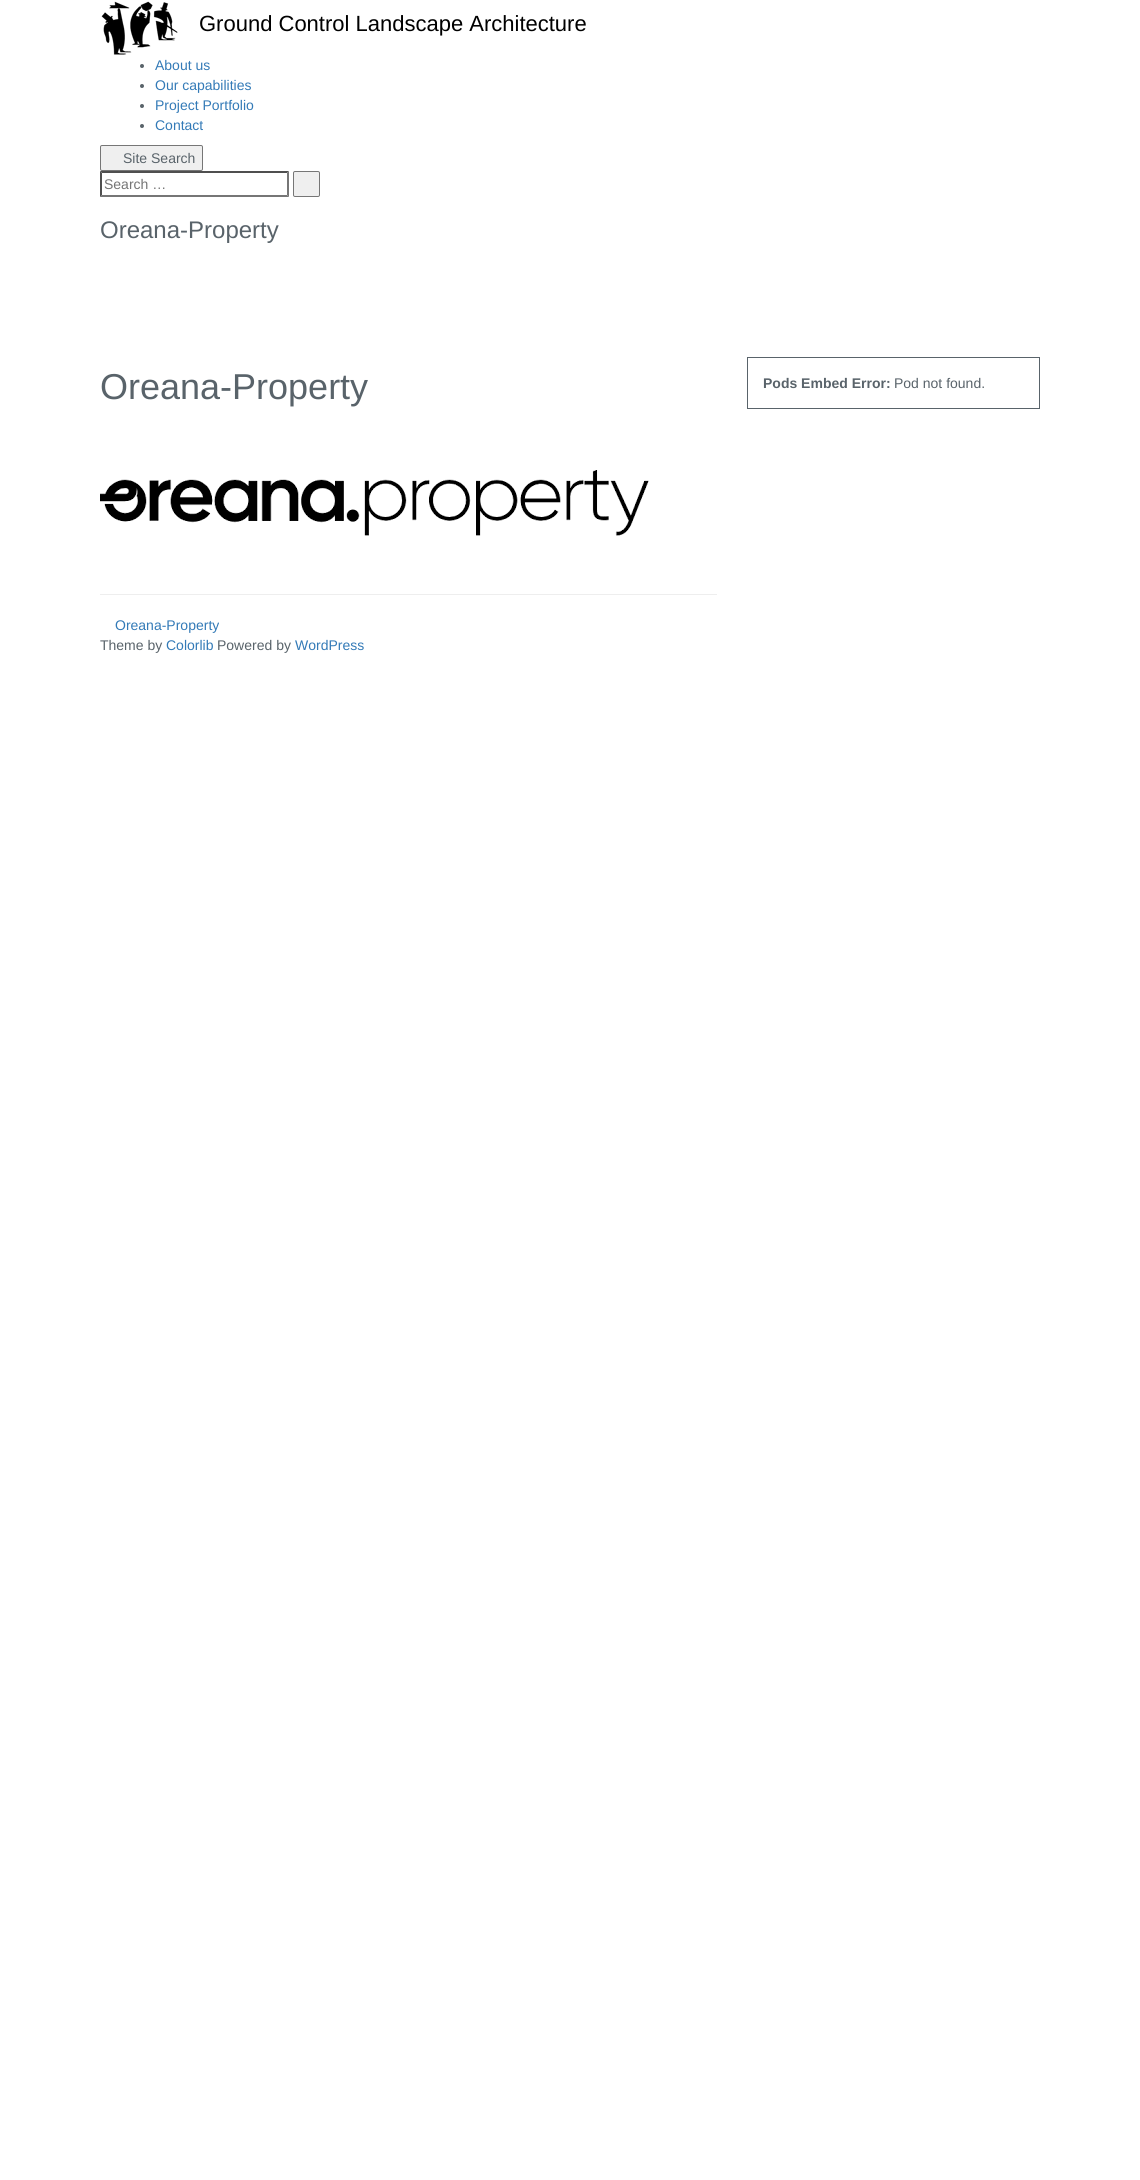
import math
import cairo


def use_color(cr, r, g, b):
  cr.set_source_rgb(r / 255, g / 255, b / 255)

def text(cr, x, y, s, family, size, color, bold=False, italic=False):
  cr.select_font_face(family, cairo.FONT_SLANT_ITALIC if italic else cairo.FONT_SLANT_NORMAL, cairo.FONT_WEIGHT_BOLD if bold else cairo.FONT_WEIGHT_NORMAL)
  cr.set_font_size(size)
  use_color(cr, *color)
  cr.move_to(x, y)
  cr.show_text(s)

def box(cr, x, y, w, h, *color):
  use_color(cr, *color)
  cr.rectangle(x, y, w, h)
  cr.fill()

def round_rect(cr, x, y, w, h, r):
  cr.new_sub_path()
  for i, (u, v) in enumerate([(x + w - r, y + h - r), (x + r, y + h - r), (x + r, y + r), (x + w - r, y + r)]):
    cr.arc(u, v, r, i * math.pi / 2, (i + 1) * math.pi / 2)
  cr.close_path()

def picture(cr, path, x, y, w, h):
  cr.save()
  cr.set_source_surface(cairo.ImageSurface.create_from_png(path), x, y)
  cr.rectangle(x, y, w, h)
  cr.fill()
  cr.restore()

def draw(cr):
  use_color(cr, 255, 255, 255)
  cr.paint()
  picture(cr, "img_01.png", 101, 1, 77, 54)
  use_color(cr, 89, 99, 106)
  cr.arc(142, 66, 2, 0, 2 * math.pi)
  cr.fill()
  cr.arc(142, 86, 2, 0, 2 * math.pi)
  cr.fill()
  cr.arc(142, 106, 2, 0, 2 * math.pi)
  cr.fill()
  cr.arc(142, 126, 2, 0, 2 * math.pi)
  cr.fill()
  use_color(cr, 239, 239, 239)
  round_rect(cr, 100.5, 145.5, 102, 25, 1.5)
  cr.fill_preserve()
  use_color(cr, 118, 118, 118)
  cr.set_line_width(1)
  cr.stroke()
  use_color(cr, 79, 79, 79)
  cr.new_path()
  cr.move_to(100, 171)
  cr.line_to(289, 171)
  cr.line_to(287, 173)
  cr.line_to(102, 173)
  cr.close_path()
  cr.fill()
  use_color(cr, 118, 118, 118)
  cr.new_path()
  cr.move_to(289, 171)
  cr.line_to(289, 197)
  cr.line_to(287, 195)
  cr.line_to(287, 173)
  cr.close_path()
  cr.fill()
  cr.new_path()
  cr.move_to(289, 197)
  cr.line_to(100, 197)
  cr.line_to(102, 195)
  cr.line_to(287, 195)
  cr.close_path()
  cr.fill()
  use_color(cr, 79, 79, 79)
  cr.new_path()
  cr.move_to(100, 197)
  cr.line_to(100, 171)
  cr.line_to(102, 173)
  cr.line_to(102, 195)
  cr.close_path()
  cr.fill()
  use_color(cr, 239, 239, 239)
  round_rect(cr, 293.5, 171.5, 26, 25, 1.5)
  cr.fill_preserve()
  use_color(cr, 118, 118, 118)
  cr.stroke()
  picture(cr, "img_02.png", 100, 470, 549, 66)
  box(cr, 100, 594, 617, 1, 238, 238, 238)
  cr.rectangle(747.5, 357.5, 292, 51)
  use_color(cr, 89, 99, 106)
  cr.stroke()
  text(cr, 199, 31, "Ground Control Landscape Architecture", "Liberation Sans", 22, (0, 0, 0))
  text(cr, 155, 70, "About us", "Liberation Sans", 14, (51, 122, 183))
  text(cr, 155, 90, "Our capabilities", "Liberation Sans", 14, (51, 122, 183))
  text(cr, 155, 110, "Project Portfolio", "Liberation Sans", 14, (51, 122, 183))
  text(cr, 155, 130, "Contact", "Liberation Sans", 14, (51, 122, 183))
  text(cr, 123, 163, "Site Search", "Liberation Sans", 14, (89, 99, 106))
  text(cr, 104, 189, "Search …", "Liberation Sans", 14, (117, 117, 117))
  text(cr, 100, 238, "Oreana-Property", "Liberation Sans", 24, (89, 99, 106))
  text(cr, 100, 399, "Oreana-Property", "Liberation Sans", 36, (89, 99, 106))
  text(cr, 115, 630, "Oreana-Property", "Liberation Sans", 14, (51, 122, 183))
  text(cr, 763, 388, "Pods Embed Error:", "Liberation Sans", 14, (89, 99, 106), bold=True)
  text(cr, 894, 388, "Pod not found.", "Liberation Sans", 14, (89, 99, 106))
  text(cr, 100, 650, "Theme by", "Liberation Sans", 14, (89, 99, 106))
  text(cr, 166, 650, "Colorlib", "Liberation Sans", 14, (51, 122, 183))
  text(cr, 217, 650, "Powered by", "Liberation Sans", 14, (89, 99, 106))
  text(cr, 295, 650, "WordPress", "Liberation Sans", 14, (51, 122, 183))


surface = cairo.ImageSurface(cairo.FORMAT_RGB24, 1140, 2180)
cr = cairo.Context(surface)
options = cairo.FontOptions()
options.set_hint_metrics(cairo.HINT_METRICS_OFF)
options.set_hint_style(cairo.HINT_STYLE_NONE)
cr.set_font_options(options)
cr.set_miter_limit(4)
draw(cr)
surface.write_to_png("out.png")
